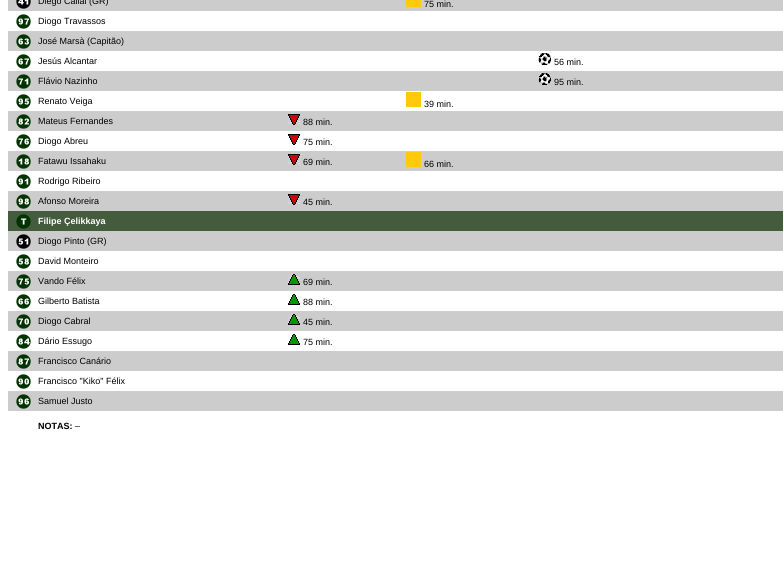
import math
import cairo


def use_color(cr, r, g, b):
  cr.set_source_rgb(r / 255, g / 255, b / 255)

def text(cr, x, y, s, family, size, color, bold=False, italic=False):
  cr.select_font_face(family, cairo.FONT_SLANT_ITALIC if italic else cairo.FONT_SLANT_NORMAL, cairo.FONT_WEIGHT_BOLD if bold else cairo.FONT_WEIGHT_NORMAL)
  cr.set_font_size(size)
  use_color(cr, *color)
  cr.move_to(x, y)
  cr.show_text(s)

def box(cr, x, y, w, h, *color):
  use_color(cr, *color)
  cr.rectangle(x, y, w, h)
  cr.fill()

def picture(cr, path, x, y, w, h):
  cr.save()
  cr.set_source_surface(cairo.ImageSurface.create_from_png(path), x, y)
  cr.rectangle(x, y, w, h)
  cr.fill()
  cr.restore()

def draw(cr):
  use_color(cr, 255, 255, 255)
  cr.paint()
  box(cr, 8, 0, 775, 11, 204, 204, 204)
  picture(cr, "img_01.png", 16, 0, 15, 9)
  box(cr, 406, 0, 15, 7, 255, 202, 11)
  picture(cr, "img_02.png", 16, 14, 15, 15)
  box(cr, 8, 31, 775, 20, 204, 204, 204)
  picture(cr, "img_03.png", 16, 34, 15, 15)
  picture(cr, "img_04.png", 16, 54, 15, 15)
  picture(cr, "img_05.png", 538, 53, 13, 12)
  box(cr, 8, 71, 775, 20, 204, 204, 204)
  picture(cr, "img_06.png", 16, 74, 15, 15)
  picture(cr, "img_07.png", 538, 73, 13, 12)
  picture(cr, "img_08.png", 16, 94, 15, 15)
  box(cr, 406, 92, 15, 15, 255, 202, 11)
  box(cr, 8, 111, 775, 20, 204, 204, 204)
  picture(cr, "img_09.png", 16, 114, 15, 15)
  picture(cr, "img_10.png", 288, 114, 12, 11)
  picture(cr, "img_11.png", 16, 134, 15, 15)
  picture(cr, "img_12.png", 288, 134, 12, 11)
  box(cr, 8, 151, 775, 20, 204, 204, 204)
  picture(cr, "img_13.png", 16, 154, 15, 15)
  picture(cr, "img_10.png", 288, 154, 12, 11)
  box(cr, 406, 152, 15, 15, 255, 202, 11)
  picture(cr, "img_14.png", 16, 174, 15, 15)
  box(cr, 8, 191, 775, 20, 204, 204, 204)
  picture(cr, "img_15.png", 16, 194, 15, 15)
  picture(cr, "img_10.png", 288, 194, 12, 11)
  box(cr, 8, 211, 775, 20, 68, 91, 62)
  picture(cr, "img_16.png", 16, 214, 15, 15)
  box(cr, 8, 231, 775, 20, 204, 204, 204)
  picture(cr, "img_17.png", 16, 234, 15, 15)
  picture(cr, "img_18.png", 16, 254, 15, 15)
  box(cr, 8, 271, 775, 20, 204, 204, 204)
  picture(cr, "img_19.png", 16, 274, 15, 15)
  picture(cr, "img_20.png", 288, 274, 12, 11)
  picture(cr, "img_21.png", 16, 294, 15, 15)
  picture(cr, "img_22.png", 288, 294, 12, 11)
  box(cr, 8, 311, 775, 20, 204, 204, 204)
  picture(cr, "img_23.png", 16, 314, 15, 15)
  picture(cr, "img_20.png", 288, 314, 12, 11)
  picture(cr, "img_24.png", 16, 334, 15, 15)
  picture(cr, "img_22.png", 288, 334, 12, 11)
  box(cr, 8, 351, 775, 20, 204, 204, 204)
  picture(cr, "img_25.png", 16, 354, 15, 15)
  picture(cr, "img_26.png", 16, 374, 15, 15)
  box(cr, 8, 391, 775, 20, 204, 204, 204)
  picture(cr, "img_27.png", 16, 394, 15, 15)
  text(cr, 38, 4, "Diego Callai (GR)", "Liberation Sans", 9, (0, 0, 0))
  text(cr, 424, 7, "75 min.", "Liberation Sans", 9, (0, 0, 0))
  text(cr, 38, 24, "Diogo Travassos", "Liberation Sans", 9, (0, 0, 0))
  text(cr, 38, 44, "José Marsà (Capitão)", "Liberation Sans", 9, (0, 0, 0))
  text(cr, 38, 64, "Jesús Alcantar", "Liberation Sans", 9, (0, 0, 0))
  text(cr, 554, 65, "56 min.", "Liberation Sans", 9, (0, 0, 0))
  text(cr, 38, 84, "Flávio Nazinho", "Liberation Sans", 9, (0, 0, 0))
  text(cr, 554, 85, "95 min.", "Liberation Sans", 9, (0, 0, 0))
  text(cr, 38, 104, "Renato Veiga", "Liberation Sans", 9, (0, 0, 0))
  text(cr, 424, 107, "39 min.", "Liberation Sans", 9, (0, 0, 0))
  text(cr, 38, 124, "Mateus Fernandes", "Liberation Sans", 9, (0, 0, 0))
  text(cr, 303, 125, "88 min.", "Liberation Sans", 9, (0, 0, 0))
  text(cr, 38, 144, "Diogo Abreu", "Liberation Sans", 9, (0, 0, 0))
  text(cr, 303, 145, "75 min.", "Liberation Sans", 9, (0, 0, 0))
  text(cr, 38, 164, "Fatawu Issahaku", "Liberation Sans", 9, (0, 0, 0))
  text(cr, 303, 165, "69 min.", "Liberation Sans", 9, (0, 0, 0))
  text(cr, 424, 167, "66 min.", "Liberation Sans", 9, (0, 0, 0))
  text(cr, 38, 184, "Rodrigo Ribeiro", "Liberation Sans", 9, (0, 0, 0))
  text(cr, 38, 204, "Afonso Moreira", "Liberation Sans", 9, (0, 0, 0))
  text(cr, 303, 205, "45 min.", "Liberation Sans", 9, (0, 0, 0))
  text(cr, 38, 224, "Filipe Çelikkaya", "Liberation Sans", 9, (255, 255, 255), bold=True)
  text(cr, 38, 244, "Diogo Pinto (GR)", "Liberation Sans", 9, (0, 0, 0))
  text(cr, 38, 264, "David Monteiro", "Liberation Sans", 9, (0, 0, 0))
  text(cr, 38, 284, "Vando Félix", "Liberation Sans", 9, (0, 0, 0))
  text(cr, 303, 285, "69 min.", "Liberation Sans", 9, (0, 0, 0))
  text(cr, 38, 304, "Gilberto Batista", "Liberation Sans", 9, (0, 0, 0))
  text(cr, 303, 305, "88 min.", "Liberation Sans", 9, (0, 0, 0))
  text(cr, 38, 324, "Diogo Cabral", "Liberation Sans", 9, (0, 0, 0))
  text(cr, 303, 325, "45 min.", "Liberation Sans", 9, (0, 0, 0))
  text(cr, 38, 344, "Dário Essugo", "Liberation Sans", 9, (0, 0, 0))
  text(cr, 303, 345, "75 min.", "Liberation Sans", 9, (0, 0, 0))
  text(cr, 38, 364, "Francisco Canário", "Liberation Sans", 9, (0, 0, 0))
  text(cr, 38, 384, "Francisco \"Kiko\" Félix", "Liberation Sans", 9, (0, 0, 0))
  text(cr, 38, 404, "Samuel Justo", "Liberation Sans", 9, (0, 0, 0))
  text(cr, 38, 429, "NOTAS:", "Liberation Sans", 9, (0, 0, 0), bold=True)
  text(cr, 75, 429, "–", "Liberation Sans", 9, (0, 0, 0))


surface = cairo.ImageSurface(cairo.FORMAT_RGB24, 783, 582)
cr = cairo.Context(surface)
options = cairo.FontOptions()
options.set_hint_metrics(cairo.HINT_METRICS_OFF)
options.set_hint_style(cairo.HINT_STYLE_NONE)
cr.set_font_options(options)
cr.set_miter_limit(4)
draw(cr)
surface.write_to_png("out.png")
